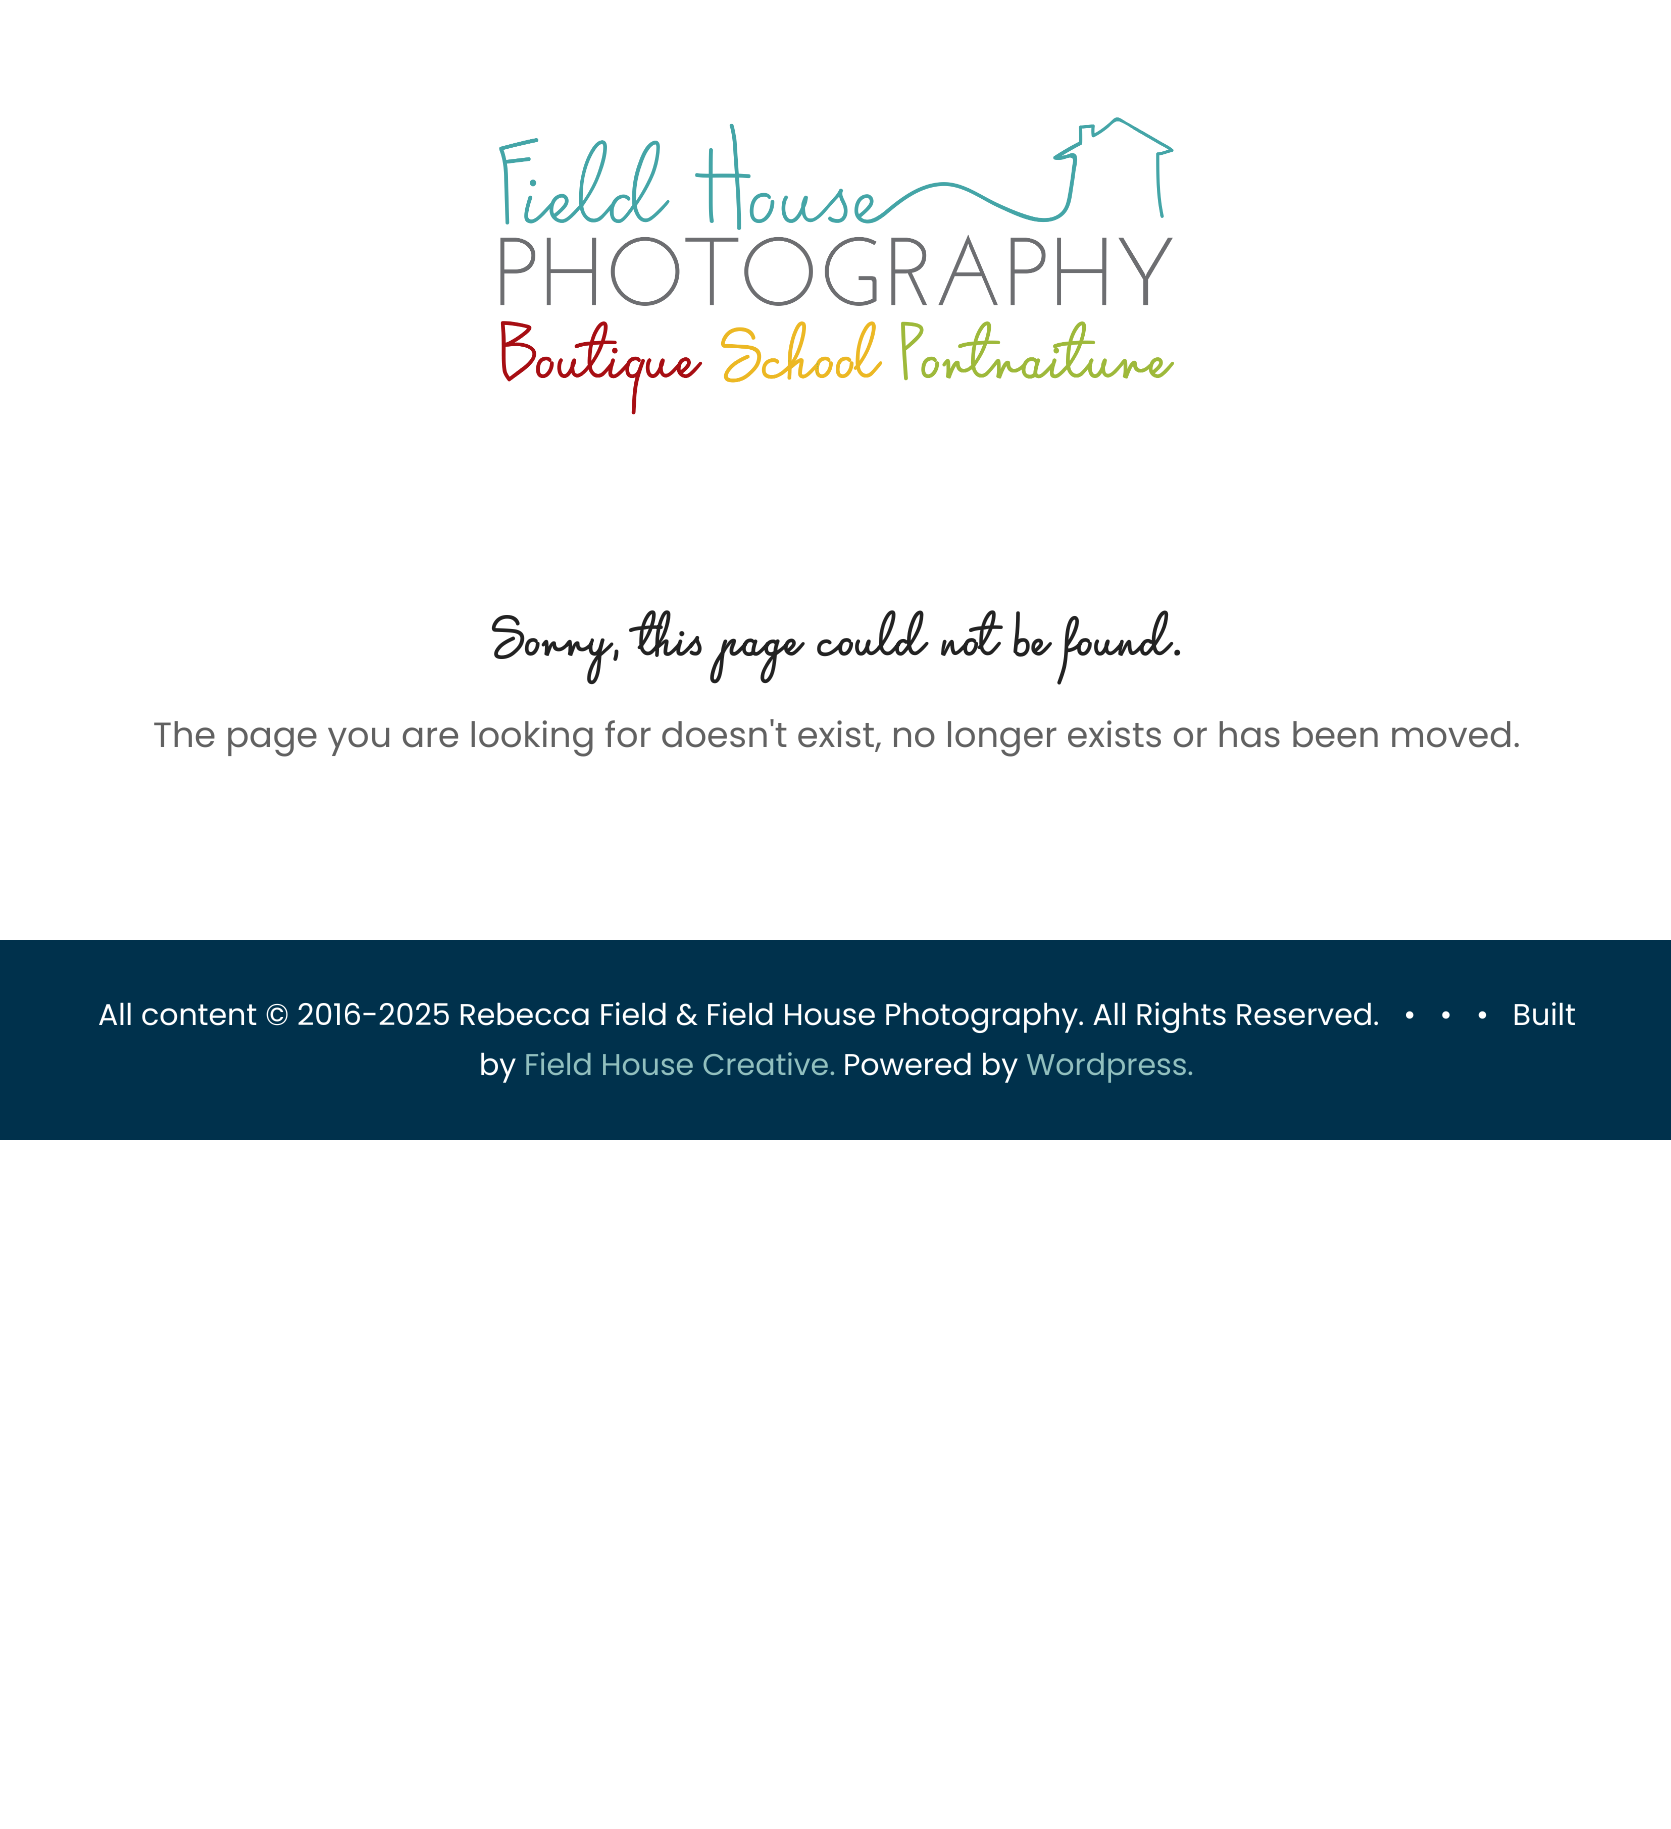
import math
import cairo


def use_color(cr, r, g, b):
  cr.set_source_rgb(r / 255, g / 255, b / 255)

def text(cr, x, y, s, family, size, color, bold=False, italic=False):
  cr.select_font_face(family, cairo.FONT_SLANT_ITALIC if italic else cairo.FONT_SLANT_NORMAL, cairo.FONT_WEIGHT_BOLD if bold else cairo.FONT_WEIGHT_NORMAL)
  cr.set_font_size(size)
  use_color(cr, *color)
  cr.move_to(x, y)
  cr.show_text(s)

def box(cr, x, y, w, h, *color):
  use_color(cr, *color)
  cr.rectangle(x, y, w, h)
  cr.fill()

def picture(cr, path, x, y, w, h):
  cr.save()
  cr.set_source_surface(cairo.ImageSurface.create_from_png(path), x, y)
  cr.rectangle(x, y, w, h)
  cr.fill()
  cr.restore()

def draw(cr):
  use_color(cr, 255, 255, 255)
  cr.paint()
  picture(cr, "img_01.png", 499, 117, 675, 298)
  box(cr, 0, 940, 1671, 200, 0, 49, 76)
  text(cr, 490, 655, "Sorry, this page could not be found.", "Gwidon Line", 60, (34, 34, 34), bold=True)
  text(cr, 153, 747, "The page you are looking for doesn't exist, no longer exists or has been moved.", "Poppins", 35, (97, 97, 97))
  text(cr, 98, 1025, "All content © 2016-2025 Rebecca Field & Field House Photography. All Rights Reserved.   •   •   •   Built", "Poppins", 30, (255, 255, 255))
  text(cr, 479, 1075, "by", "Poppins", 30, (255, 255, 255))
  text(cr, 524, 1075, "Field House Creative.", "Poppins", 30, (145, 191, 190))
  text(cr, 843, 1075, "Powered by", "Poppins", 30, (255, 255, 255))
  text(cr, 1026, 1075, "Wordpress.", "Poppins", 30, (145, 191, 190))


surface = cairo.ImageSurface(cairo.FORMAT_RGB24, 1671, 1829)
cr = cairo.Context(surface)
options = cairo.FontOptions()
options.set_hint_metrics(cairo.HINT_METRICS_OFF)
options.set_hint_style(cairo.HINT_STYLE_NONE)
cr.set_font_options(options)
cr.set_miter_limit(4)
draw(cr)
surface.write_to_png("out.png")
